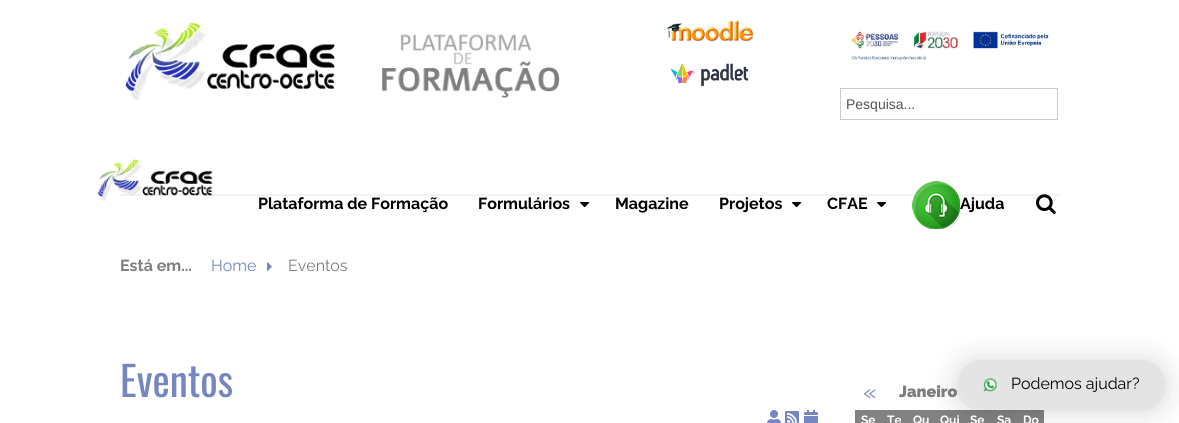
import math
import cairo


def use_color(cr, r, g, b):
  cr.set_source_rgb(r / 255, g / 255, b / 255)

def text(cr, x, y, s, family, size, color, bold=False, italic=False):
  cr.select_font_face(family, cairo.FONT_SLANT_ITALIC if italic else cairo.FONT_SLANT_NORMAL, cairo.FONT_WEIGHT_BOLD if bold else cairo.FONT_WEIGHT_NORMAL)
  cr.set_font_size(size)
  use_color(cr, *color)
  cr.move_to(x, y)
  cr.show_text(s)

def box(cr, x, y, w, h, *color):
  use_color(cr, *color)
  cr.rectangle(x, y, w, h)
  cr.fill()

def round_rect(cr, x, y, w, h, r):
  cr.new_sub_path()
  for i, (u, v) in enumerate([(x + w - r, y + h - r), (x + r, y + h - r), (x + r, y + r), (x + w - r, y + r)]):
    cr.arc(u, v, r, i * math.pi / 2, (i + 1) * math.pi / 2)
  cr.close_path()

def shadow(cr, x, y, w, h, r, blur, alpha):
  cr.push_group_with_content(cairo.CONTENT_ALPHA)
  cr.set_operator(cairo.OPERATOR_SOURCE)
  for i in range(15, -16, -2):
    e = blur * i / 6
    if min(w, h) + 2 * e > 0:
      cr.set_source_rgba(0, 0, 0, alpha * math.erfc((i - 1) / 8.5) / 2)
      round_rect(cr, x - e, y - e, w + 2 * e, h + 2 * e, max(0, min(r + e + blur * .6, min(w, h) / 2 + e)))
      cr.fill()
  cr.mask(cr.pop_group())

def picture(cr, path, x, y, w, h):
  cr.save()
  cr.set_source_surface(cairo.ImageSurface.create_from_png(path), x, y)
  cr.rectangle(x, y, w, h)
  cr.fill()
  cr.restore()

def draw(cr):
  use_color(cr, 255, 255, 255)
  cr.paint()
  picture(cr, "img_01.png", 125, 22, 210, 78)
  picture(cr, "img_02.png", 382, 34, 178, 64)
  picture(cr, "img_03.png", 666, 20, 88, 22)
  picture(cr, "img_04.png", 671, 63, 77, 23)
  picture(cr, "img_05.png", 850, 30, 199, 31)
  cr.rectangle(840.5, 88.5, 217, 31)
  use_color(cr, 204, 204, 204)
  cr.set_line_width(1)
  cr.stroke()
  box(cr, 120, 194, 940, 2, 231, 231, 231)
  gradient = cairo.LinearGradient(590, 140, 590, 254)
  gradient.add_color_stop_rgba(0, 1, 1, 1, 1)
  gradient.add_color_stop_rgba(1, 1, 1, 1, 0)
  cr.set_source(gradient)
  cr.rectangle(120, 194, 940, 2)
  cr.fill()
  picture(cr, "img_06.png", 97, 159, 116, 42)
  picture(cr, "img_07.png", 580, 202, 10, 6)
  picture(cr, "img_07.png", 792, 202, 10, 6)
  picture(cr, "img_07.png", 877, 202, 10, 6)
  picture(cr, "img_08.png", 912, 181, 48, 48)
  picture(cr, "img_09.png", 1036, 194, 20, 20)
  picture(cr, "img_10.png", 267, 262, 5, 9)
  picture(cr, "img_11.png", 767, 410, 14, 13)
  picture(cr, "img_12.png", 785, 411, 14, 12)
  picture(cr, "img_13.png", 804, 410, 14, 13)
  box(cr, 855, 410, 189, 13, 130, 130, 130)
  use_color(cr, 0, 0, 0)
  shadow(cr, 959, 362, 205, 48, 24, 16, 0.16)
  shadow(cr, 959, 361, 205, 48, 24, 3, 0.06)
  use_color(cr, 228, 228, 228)
  round_rect(cr, 959, 360, 205, 48, 24)
  cr.fill()
  picture(cr, "img_14.png", 983, 377, 14, 15)
  text(cr, 846, 109, "Pesquisa...", "Liberation Sans", 14, (85, 85, 85))
  text(cr, 258, 209, "Plataforma de Formação", "Raleway", 16, (0, 0, 0), bold=True)
  text(cr, 478, 209, "Formulários", "Raleway", 16, (0, 0, 0), bold=True)
  text(cr, 615, 209, "Magazine", "Raleway", 16, (0, 0, 0), bold=True)
  text(cr, 719, 209, "Projetos", "Raleway", 16, (0, 0, 0), bold=True)
  text(cr, 827, 209, "CFAE", "Raleway", 16, (0, 0, 0), bold=True)
  text(cr, 960, 209, "Ajuda", "Raleway", 16, (0, 0, 0), bold=True)
  text(cr, 120, 271, "Está em...", "Raleway", 16, (126, 125, 125), bold=True)
  text(cr, 211, 271, "Home", "Raleway", 16, (118, 135, 191))
  text(cr, 288, 271, "Eventos", "Raleway", 16, (126, 125, 125))
  text(cr, 120, 397, "Eventos", "Oswald", 41, (118, 135, 191))
  text(cr, 863, 400, "«", "Raleway", 24, (118, 135, 191))
  text(cr, 899, 397, "Janeiro", "Raleway Black", 16, (126, 125, 125))
  text(cr, 861, 424, "Se", "Raleway", 12, (255, 255, 255), bold=True)
  text(cr, 887, 424, "Te", "Raleway", 12, (255, 255, 255), bold=True)
  text(cr, 913, 424, "Qu", "Raleway", 12, (255, 255, 255), bold=True)
  text(cr, 940, 424, "Qui", "Raleway", 12, (255, 255, 255), bold=True)
  text(cr, 970, 424, "Se", "Raleway", 12, (255, 255, 255), bold=True)
  text(cr, 997, 424, "Sa", "Raleway", 12, (255, 255, 255), bold=True)
  text(cr, 1023, 424, "Do", "Raleway", 12, (255, 255, 255), bold=True)
  text(cr, 1011, 389, "Podemos ajudar?", "Raleway", 16, (0, 0, 0))


surface = cairo.ImageSurface(cairo.FORMAT_RGB24, 1179, 423)
cr = cairo.Context(surface)
options = cairo.FontOptions()
options.set_hint_metrics(cairo.HINT_METRICS_OFF)
options.set_hint_style(cairo.HINT_STYLE_NONE)
cr.set_font_options(options)
cr.set_miter_limit(4)
draw(cr)
surface.write_to_png("out.png")
